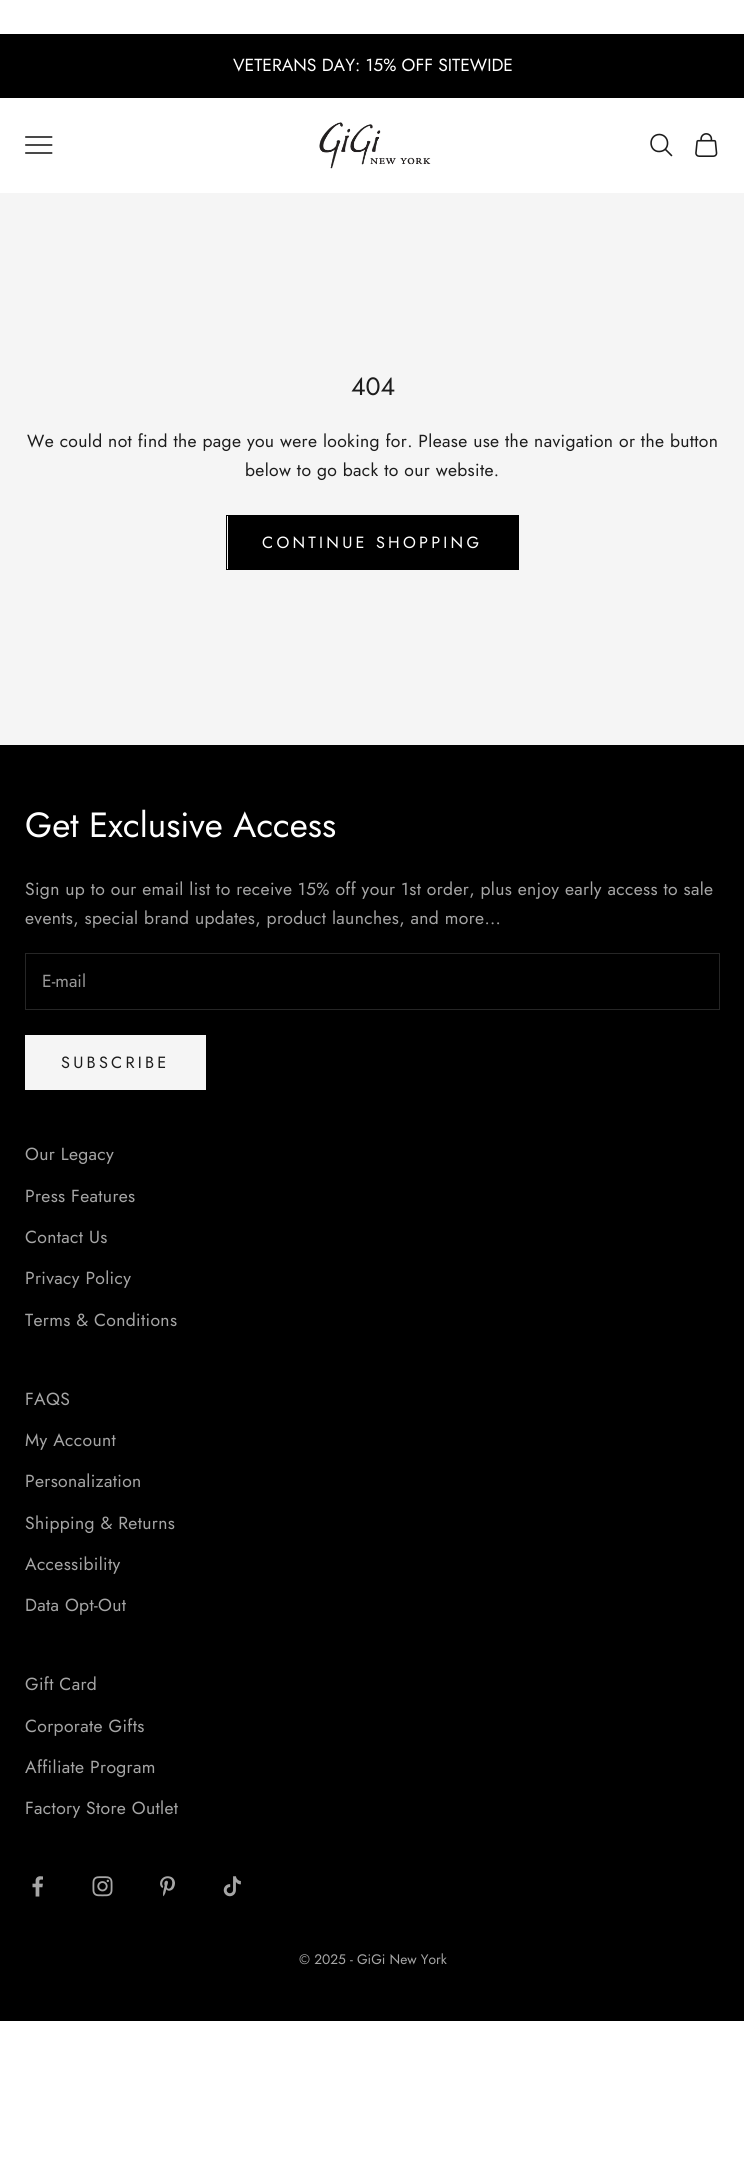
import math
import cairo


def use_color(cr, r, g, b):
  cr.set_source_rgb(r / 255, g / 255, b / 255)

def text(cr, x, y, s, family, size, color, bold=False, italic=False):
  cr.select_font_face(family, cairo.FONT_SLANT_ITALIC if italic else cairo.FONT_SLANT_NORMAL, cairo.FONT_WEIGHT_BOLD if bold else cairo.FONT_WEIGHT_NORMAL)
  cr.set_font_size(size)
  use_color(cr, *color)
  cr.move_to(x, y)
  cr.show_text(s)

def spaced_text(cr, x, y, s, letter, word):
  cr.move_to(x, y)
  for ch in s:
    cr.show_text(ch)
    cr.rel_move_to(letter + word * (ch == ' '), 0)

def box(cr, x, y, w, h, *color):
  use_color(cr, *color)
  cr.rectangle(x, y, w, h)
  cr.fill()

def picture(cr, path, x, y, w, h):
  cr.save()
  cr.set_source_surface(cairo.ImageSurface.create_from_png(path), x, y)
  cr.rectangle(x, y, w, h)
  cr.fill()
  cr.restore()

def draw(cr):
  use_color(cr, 255, 255, 255)
  cr.paint()
  box(cr, 0, 34, 744, 64, 0, 0, 0)
  cr.new_path()
  cr.move_to(26, 153)
  cr.line_to(51.5, 153)
  cr.move_to(26, 145)
  cr.line_to(51.5, 145)
  cr.move_to(26, 137)
  cr.line_to(51.5, 137)
  use_color(cr, 28, 28, 28)
  cr.set_line_width(1.6)
  cr.set_line_cap(cairo.LINE_CAP_SQUARE)
  cr.stroke()
  picture(cr, "img_01.png", 319, 122, 112, 47)
  cr.new_path()
  cr.move_to(659.5, 134.5)
  cr.curve_to(648, 134.5, 648.5, 152, 659.5, 151.5)
  cr.curve_to(670.5, 151, 670, 135, 659.5, 134.5)
  cr.close_path()
  cr.set_line_cap(cairo.LINE_CAP_BUTT)
  cr.stroke()
  cr.new_path()
  cr.move_to(665.5, 149.5)
  cr.line_to(671.5, 155.5)
  cr.set_line_cap(cairo.LINE_CAP_ROUND)
  cr.stroke()
  picture(cr, "img_02.png", 695, 133, 23, 24)
  box(cr, 0, 193, 744, 552, 245, 245, 245)
  box(cr, 228, 516, 290, 53, 0, 0, 0)
  cr.rectangle(226.5, 515.5, 292, 54)
  cr.set_line_width(1)
  cr.set_line_cap(cairo.LINE_CAP_BUTT)
  cr.stroke()
  box(cr, 0, 745, 744, 1276, 0, 0, 0)
  cr.rectangle(25.5, 953.5, 694, 56)
  use_color(cr, 38, 38, 38)
  cr.stroke()
  use_color(cr, 245, 245, 245)
  cr.rectangle(25.5, 1035.5, 180, 54)
  cr.fill_preserve()
  cr.stroke()
  picture(cr, "img_03.png", 32, 1876, 11, 21)
  picture(cr, "img_04.png", 92, 1876, 21, 21)
  picture(cr, "img_05.png", 160, 1876, 15, 21)
  picture(cr, "img_06.png", 223, 1876, 18, 21)
  text(cr, 233, 71, "VETERANS DAY: 15% OFF SITEWIDE", "Jost", 17.5, (255, 255, 255))
  text(cr, 351, 395, "404", "Jost", 25, (28, 28, 28))
  cr.set_font_size(17.5)
  spaced_text(cr, 27, 447, "We could not find the page you were looking for. Please use the navigation or the button", 0.35, 0)
  spaced_text(cr, 245, 476, "below to go back to our website.", 0.35, 0)
  cr.set_font_size(16.25)
  use_color(cr, 255, 255, 255)
  spaced_text(cr, 262, 548, "CONTINUE SHOPPING", 3.25, 0)
  text(cr, 25, 837, "Get Exclusive Access", "Jost", 35, (255, 255, 255))
  cr.set_font_size(17.5)
  use_color(cr, 166, 166, 166)
  spaced_text(cr, 25, 895, "Sign up to our email list to receive 15% off your 1st order, plus enjoy early access to sale", 0.35, 0)
  spaced_text(cr, 25, 924, "events, special brand updates, product launches, and more...", 0.35, 0)
  text(cr, 42, 987, "E-mail", "Jost", 17.5, (153, 153, 153))
  cr.set_font_size(16.25)
  use_color(cr, 28, 28, 28)
  spaced_text(cr, 61, 1068, "SUBSCRIBE", 3.25, 0)
  cr.set_font_size(17.5)
  use_color(cr, 166, 166, 166)
  spaced_text(cr, 25, 1160, "Our Legacy", 0.35, 0)
  spaced_text(cr, 25, 1202, "Press Features", 0.35, 0)
  spaced_text(cr, 25, 1243, "Contact Us", 0.35, 0)
  spaced_text(cr, 25, 1284, "Privacy Policy", 0.35, 0)
  spaced_text(cr, 25, 1326, "Terms & Conditions", 0.35, 0)
  spaced_text(cr, 25, 1405, "FAQS", 0.35, 0)
  spaced_text(cr, 25, 1446, "My Account", 0.35, 0)
  spaced_text(cr, 25, 1487, "Personalization", 0.35, 0)
  spaced_text(cr, 25, 1529, "Shipping & Returns", 0.35, 0)
  spaced_text(cr, 25, 1570, "Accessibility", 0.35, 0)
  spaced_text(cr, 25, 1611, "Data Opt-Out", 0.35, 0)
  spaced_text(cr, 25, 1690, "Gift Card", 0.35, 0)
  spaced_text(cr, 25, 1732, "Corporate Gifts", 0.35, 0)
  spaced_text(cr, 25, 1773, "Affiliate Program", 0.35, 0)
  spaced_text(cr, 25, 1814, "Factory Store Outlet", 0.35, 0)
  text(cr, 299, 1964, "© 2025 - GiGi New York", "Jost", 13.75, (166, 166, 166))


surface = cairo.ImageSurface(cairo.FORMAT_RGB24, 744, 2159)
cr = cairo.Context(surface)
options = cairo.FontOptions()
options.set_hint_metrics(cairo.HINT_METRICS_OFF)
options.set_hint_style(cairo.HINT_STYLE_NONE)
cr.set_font_options(options)
cr.set_miter_limit(4)
draw(cr)
surface.write_to_png("out.png")
